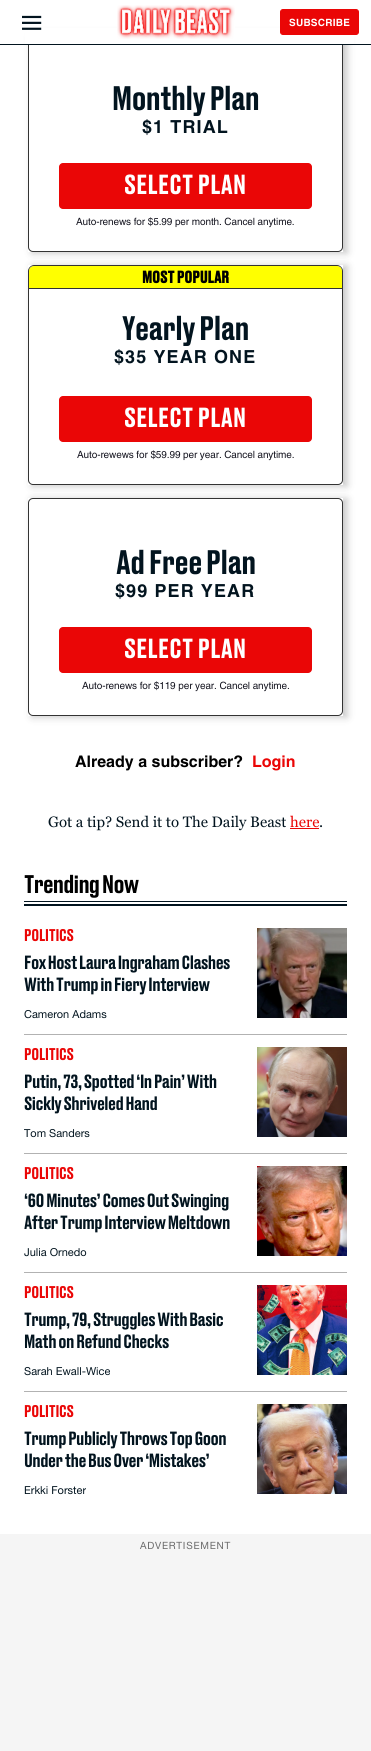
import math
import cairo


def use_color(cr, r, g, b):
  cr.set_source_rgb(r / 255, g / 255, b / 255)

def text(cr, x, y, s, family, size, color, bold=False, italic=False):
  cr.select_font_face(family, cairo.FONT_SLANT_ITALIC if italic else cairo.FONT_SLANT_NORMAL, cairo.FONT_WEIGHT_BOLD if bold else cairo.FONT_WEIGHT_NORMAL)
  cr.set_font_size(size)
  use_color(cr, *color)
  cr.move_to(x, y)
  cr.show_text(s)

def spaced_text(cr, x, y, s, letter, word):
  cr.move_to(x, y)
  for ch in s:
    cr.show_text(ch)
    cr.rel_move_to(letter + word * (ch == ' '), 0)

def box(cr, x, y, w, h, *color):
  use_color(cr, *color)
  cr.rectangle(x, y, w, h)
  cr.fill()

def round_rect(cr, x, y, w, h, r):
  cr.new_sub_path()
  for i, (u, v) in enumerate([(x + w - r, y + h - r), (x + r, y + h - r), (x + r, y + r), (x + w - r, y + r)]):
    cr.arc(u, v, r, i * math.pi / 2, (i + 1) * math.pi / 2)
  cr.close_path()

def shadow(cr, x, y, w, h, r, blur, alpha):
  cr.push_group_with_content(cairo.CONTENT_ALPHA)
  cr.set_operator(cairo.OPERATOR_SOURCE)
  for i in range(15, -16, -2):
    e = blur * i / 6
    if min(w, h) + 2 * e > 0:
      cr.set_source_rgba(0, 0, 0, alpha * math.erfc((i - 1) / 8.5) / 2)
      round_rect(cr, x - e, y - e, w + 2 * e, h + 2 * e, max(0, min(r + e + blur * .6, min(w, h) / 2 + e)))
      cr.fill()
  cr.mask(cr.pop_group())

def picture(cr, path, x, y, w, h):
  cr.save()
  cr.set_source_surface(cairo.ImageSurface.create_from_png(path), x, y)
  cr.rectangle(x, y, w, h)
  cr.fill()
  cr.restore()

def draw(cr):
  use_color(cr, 255, 255, 255)
  cr.paint()
  cr.save()
  cr.set_fill_rule(cairo.FILL_RULE_EVEN_ODD)
  cr.new_path()
  cr.move_to(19, 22)
  cr.line_to(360, 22)
  cr.line_to(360, 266)
  cr.line_to(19, 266)
  cr.close_path()
  cr.move_to(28, 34)
  cr.line_to(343, 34)
  cr.line_to(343, 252)
  cr.line_to(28, 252)
  cr.close_path()
  cr.clip()
  use_color(cr, 0, 0, 0)
  shadow(cr, 32, 35, 315, 218, 0, 4, 0.22)
  cr.restore()
  round_rect(cr, 28.5, 34.5, 314, 217, 4.5)
  use_color(cr, 51, 51, 51)
  cr.set_line_width(1)
  cr.stroke()
  box(cr, 25, 28, 329, 16, 255, 255, 255)
  box(cr, 0, 44, 371, 1, 2, 20, 31)
  picture(cr, "img_01.png", 22, 15, 20, 15)
  picture(cr, "img_02.png", 117, 5, 118, 34)
  use_color(cr, 234, 6, 6)
  round_rect(cr, 280.5, 9.5, 78, 25, 2.5)
  cr.fill_preserve()
  cr.stroke()
  round_rect(cr, 59, 163, 253, 46, 4)
  cr.fill()
  cr.save()
  cr.set_fill_rule(cairo.FILL_RULE_EVEN_ODD)
  cr.new_path()
  cr.move_to(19, 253)
  cr.line_to(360, 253)
  cr.line_to(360, 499)
  cr.line_to(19, 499)
  cr.close_path()
  cr.move_to(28, 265)
  cr.line_to(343, 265)
  cr.line_to(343, 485)
  cr.line_to(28, 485)
  cr.close_path()
  cr.clip()
  use_color(cr, 0, 0, 0)
  shadow(cr, 32, 266, 315, 220, 0, 4, 0.22)
  cr.restore()
  use_color(cr, 255, 255, 0)
  cr.new_path()
  cr.move_to(34, 266)
  cr.line_to(337, 266)
  cr.curve_to(340, 266, 342, 268, 342, 271)
  cr.line_to(342, 288)
  cr.line_to(29, 288)
  cr.line_to(29, 271)
  cr.curve_to(29, 268, 31, 266, 34, 266)
  cr.close_path()
  cr.fill()
  use_color(cr, 51, 51, 51)
  cr.set_fill_rule(cairo.FILL_RULE_EVEN_ODD)
  cr.new_path()
  cr.move_to(34, 265)
  cr.line_to(337, 265)
  cr.curve_to(340, 265, 343, 268, 343, 271)
  cr.line_to(343, 288)
  cr.line_to(28, 288)
  cr.line_to(28, 271)
  cr.curve_to(28, 268, 31, 265, 34, 265)
  cr.close_path()
  cr.move_to(34, 266)
  cr.line_to(337, 266)
  cr.curve_to(340, 266, 342, 268, 342, 271)
  cr.line_to(342, 288)
  cr.line_to(29, 288)
  cr.line_to(29, 271)
  cr.curve_to(29, 268, 31, 266, 34, 266)
  cr.close_path()
  cr.fill()
  cr.new_path()
  cr.move_to(28.5, 288.5)
  cr.line_to(342.5, 288.5)
  cr.line_to(342.5, 480)
  cr.curve_to(342.5, 482.5, 340.5, 484.5, 338, 484.5)
  cr.line_to(33, 484.5)
  cr.curve_to(30.5, 484.5, 28.5, 482.5, 28.5, 480)
  cr.close_path()
  cr.stroke()
  use_color(cr, 234, 6, 6)
  round_rect(cr, 59, 396, 253, 46, 4)
  cr.fill()
  cr.save()
  cr.new_path()
  cr.move_to(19, 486)
  cr.line_to(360, 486)
  cr.line_to(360, 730)
  cr.line_to(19, 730)
  cr.close_path()
  cr.move_to(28, 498)
  cr.line_to(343, 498)
  cr.line_to(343, 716)
  cr.line_to(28, 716)
  cr.close_path()
  cr.clip()
  use_color(cr, 0, 0, 0)
  shadow(cr, 32, 499, 315, 218, 0, 4, 0.22)
  cr.restore()
  round_rect(cr, 28.5, 498.5, 314, 217, 4.5)
  use_color(cr, 51, 51, 51)
  cr.stroke()
  use_color(cr, 234, 6, 6)
  round_rect(cr, 59, 627, 253, 46, 4)
  cr.fill()
  box(cr, 290, 828, 29, 1, 234, 6, 6)
  box(cr, 24, 901, 323, 1, 2, 20, 31)
  box(cr, 24, 904, 323, 2, 2, 20, 31)
  box(cr, 24, 1034, 323, 1, 178, 178, 178)
  picture(cr, "img_03.png", 257, 928, 90, 90)
  box(cr, 24, 1153, 323, 1, 178, 178, 178)
  picture(cr, "img_04.png", 257, 1047, 90, 90)
  box(cr, 24, 1272, 323, 1, 178, 178, 178)
  picture(cr, "img_05.png", 257, 1166, 90, 90)
  box(cr, 24, 1391, 323, 1, 178, 178, 178)
  picture(cr, "img_06.png", 257, 1285, 90, 90)
  picture(cr, "img_07.png", 257, 1404, 90, 90)
  box(cr, 0, 1534, 371, 217, 245, 245, 245)
  cr.select_font_face("Helvetica", cairo.FONT_SLANT_NORMAL, cairo.FONT_WEIGHT_BOLD)
  cr.set_font_size(10)
  use_color(cr, 255, 255, 255)
  spaced_text(cr, 289, 26, "SUBSCRIBE", 0.25, 0)
  cr.select_font_face("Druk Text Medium")
  cr.set_font_size(32)
  use_color(cr, 2, 20, 31)
  spaced_text(cr, 112, 110, "Monthly Plan", -0.5, 0)
  cr.select_font_face("Helvetica", cairo.FONT_SLANT_NORMAL, cairo.FONT_WEIGHT_BOLD)
  cr.set_font_size(18)
  spaced_text(cr, 142, 133, "$1 TRIAL", 1.1, 0)
  cr.select_font_face("Druk Text Medium")
  cr.set_font_size(26)
  use_color(cr, 255, 255, 255)
  spaced_text(cr, 124, 194, "SELECT PLAN", 0.25, 0)
  cr.select_font_face("Helvetica")
  cr.set_font_size(10)
  use_color(cr, 20, 20, 31)
  spaced_text(cr, 76, 225, "Auto-renews for $5.99 per month. Cancel anytime.", -0.1, 0)
  text(cr, 142, 283, "MOST POPULAR", "Druk Text", 16, (0, 0, 0), bold=True)
  cr.select_font_face("Druk Text Medium")
  cr.set_font_size(32)
  use_color(cr, 2, 20, 31)
  spaced_text(cr, 122, 340, "Yearly Plan", -0.5, 0)
  cr.select_font_face("Helvetica", cairo.FONT_SLANT_NORMAL, cairo.FONT_WEIGHT_BOLD)
  cr.set_font_size(18)
  spaced_text(cr, 114, 363, "$35 YEAR ONE", 1.1, 0)
  cr.select_font_face("Druk Text Medium")
  cr.set_font_size(26)
  use_color(cr, 255, 255, 255)
  spaced_text(cr, 124, 427, "SELECT PLAN", 0.25, 0)
  cr.select_font_face("Helvetica")
  cr.set_font_size(10)
  use_color(cr, 20, 20, 31)
  spaced_text(cr, 77, 458, "Auto-rewews for $59.99 per year. Cancel anytime.", -0.1, 0)
  cr.select_font_face("Druk Text Medium")
  cr.set_font_size(32)
  use_color(cr, 2, 20, 31)
  spaced_text(cr, 116, 574, "Ad Free Plan", -0.5, 0)
  cr.select_font_face("Helvetica", cairo.FONT_SLANT_NORMAL, cairo.FONT_WEIGHT_BOLD)
  cr.set_font_size(18)
  spaced_text(cr, 115, 597, "$99 PER YEAR", 1.1, 0)
  cr.select_font_face("Druk Text Medium")
  cr.set_font_size(26)
  use_color(cr, 255, 255, 255)
  spaced_text(cr, 124, 658, "SELECT PLAN", 0.25, 0)
  cr.select_font_face("Helvetica")
  cr.set_font_size(10)
  use_color(cr, 20, 20, 31)
  spaced_text(cr, 82, 689, "Auto-renews for $119 per year. Cancel anytime.", -0.1, 0)
  text(cr, 75, 767, "Already a subscriber?", "Helvetica", 16, (0, 0, 0), bold=True)
  text(cr, 252, 767, "Login", "Helvetica", 16, (234, 6, 6), bold=True)
  text(cr, 48, 827, "Got a tip? Send it to The Daily Beast", "Georgia", 15, (2, 20, 31))
  text(cr, 290, 827, "here", "Georgia", 15, (234, 6, 6))
  text(cr, 319, 827, ".", "Georgia", 15, (2, 20, 31))
  cr.select_font_face("Druk Text Medium")
  cr.set_font_size(24)
  use_color(cr, 0, 0, 0)
  spaced_text(cr, 24, 893, "Trending Now", -0.75, 0)
  cr.set_font_size(16)
  use_color(cr, 234, 6, 6)
  spaced_text(cr, 24, 941, "POLITICS", -0.25, 0)
  cr.set_font_size(18)
  use_color(cr, 2, 20, 31)
  spaced_text(cr, 24, 969, "Fox Host Laura Ingraham Clashes", -0.5, 0)
  spaced_text(cr, 24, 991, "With Trump in Fiery Interview", -0.5, 0)
  text(cr, 24, 1018, "Cameron Adams", "Helvetica Neue", 11, (2, 20, 31))
  cr.select_font_face("Druk Text Medium")
  cr.set_font_size(16)
  use_color(cr, 234, 6, 6)
  spaced_text(cr, 24, 1060, "POLITICS", -0.25, 0)
  cr.set_font_size(18)
  use_color(cr, 2, 20, 31)
  spaced_text(cr, 24, 1088, "Putin, 73, Spotted ‘In Pain’ With", -0.5, 0)
  spaced_text(cr, 24, 1110, "Sickly Shriveled Hand", -0.5, 0)
  text(cr, 24, 1137, "Tom Sanders", "Helvetica Neue", 11, (2, 20, 31))
  cr.select_font_face("Druk Text Medium")
  cr.set_font_size(16)
  use_color(cr, 234, 6, 6)
  spaced_text(cr, 24, 1179, "POLITICS", -0.25, 0)
  cr.set_font_size(18)
  use_color(cr, 2, 20, 31)
  spaced_text(cr, 24, 1207, "‘60 Minutes’ Comes Out Swinging", -0.5, 0)
  spaced_text(cr, 24, 1229, "After Trump Interview Meltdown", -0.5, 0)
  text(cr, 24, 1256, "Julia Ornedo", "Helvetica Neue", 11, (2, 20, 31))
  cr.select_font_face("Druk Text Medium")
  cr.set_font_size(16)
  use_color(cr, 234, 6, 6)
  spaced_text(cr, 24, 1298, "POLITICS", -0.25, 0)
  cr.set_font_size(18)
  use_color(cr, 2, 20, 31)
  spaced_text(cr, 24, 1326, "Trump, 79, Struggles With Basic", -0.5, 0)
  spaced_text(cr, 24, 1348, "Math on Refund Checks", -0.5, 0)
  text(cr, 24, 1375, "Sarah Ewall-Wice", "Helvetica Neue", 11, (2, 20, 31))
  cr.select_font_face("Druk Text Medium")
  cr.set_font_size(16)
  use_color(cr, 234, 6, 6)
  spaced_text(cr, 24, 1417, "POLITICS", -0.25, 0)
  cr.set_font_size(18)
  use_color(cr, 2, 20, 31)
  spaced_text(cr, 24, 1445, "Trump Publicly Throws Top Goon", -0.5, 0)
  spaced_text(cr, 24, 1467, "Under the Bus Over ‘Mistakes’", -0.5, 0)
  text(cr, 24, 1494, "Erkki Forster", "Helvetica Neue", 11, (2, 20, 31))
  cr.set_font_size(10)
  use_color(cr, 108, 108, 108)
  spaced_text(cr, 140, 1549, "ADVERTISEMENT", 0.75, 0)


surface = cairo.ImageSurface(cairo.FORMAT_RGB24, 371, 1751)
cr = cairo.Context(surface)
options = cairo.FontOptions()
options.set_hint_metrics(cairo.HINT_METRICS_OFF)
options.set_hint_style(cairo.HINT_STYLE_NONE)
cr.set_font_options(options)
cr.set_miter_limit(4)
draw(cr)
surface.write_to_png("out.png")
